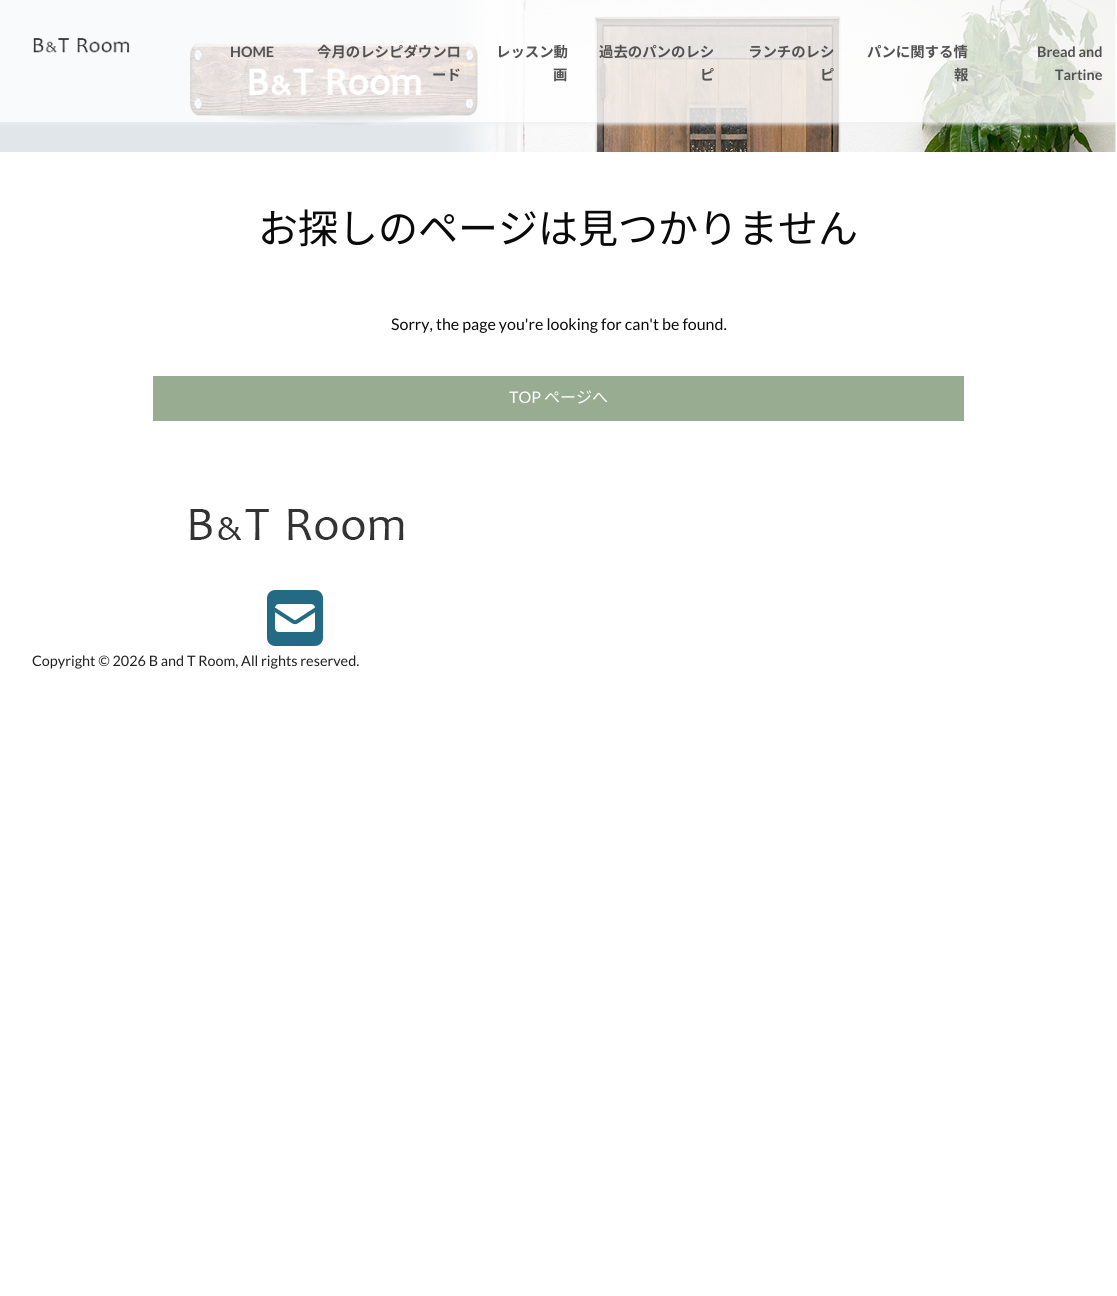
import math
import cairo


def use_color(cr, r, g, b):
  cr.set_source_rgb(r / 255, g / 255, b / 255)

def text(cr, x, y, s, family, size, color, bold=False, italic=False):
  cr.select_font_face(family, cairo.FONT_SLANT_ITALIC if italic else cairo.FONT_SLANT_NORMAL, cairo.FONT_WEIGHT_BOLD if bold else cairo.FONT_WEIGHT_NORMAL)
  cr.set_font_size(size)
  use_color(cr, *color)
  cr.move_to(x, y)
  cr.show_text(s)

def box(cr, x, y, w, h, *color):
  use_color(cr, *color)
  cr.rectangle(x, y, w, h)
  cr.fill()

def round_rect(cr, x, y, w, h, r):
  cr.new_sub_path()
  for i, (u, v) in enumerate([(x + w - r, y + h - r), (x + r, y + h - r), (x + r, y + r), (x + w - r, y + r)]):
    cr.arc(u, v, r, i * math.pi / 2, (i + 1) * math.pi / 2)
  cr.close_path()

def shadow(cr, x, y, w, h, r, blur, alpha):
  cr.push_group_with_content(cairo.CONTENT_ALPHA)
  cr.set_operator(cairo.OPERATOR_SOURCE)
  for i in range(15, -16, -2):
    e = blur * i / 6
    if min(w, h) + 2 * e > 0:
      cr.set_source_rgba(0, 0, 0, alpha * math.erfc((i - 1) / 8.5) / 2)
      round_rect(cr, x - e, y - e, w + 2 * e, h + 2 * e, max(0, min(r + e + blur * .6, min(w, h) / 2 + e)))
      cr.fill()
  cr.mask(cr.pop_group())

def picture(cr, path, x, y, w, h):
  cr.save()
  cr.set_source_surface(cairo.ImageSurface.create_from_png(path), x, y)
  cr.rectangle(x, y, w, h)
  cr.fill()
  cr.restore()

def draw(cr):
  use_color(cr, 255, 255, 255)
  cr.paint()
  picture(cr, "img_01.png", 0, 0, 1117, 152)
  cr.save()
  cr.rectangle(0, 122, 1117, 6)
  cr.clip()
  use_color(cr, 238, 239, 241)
  shadow(cr, 0, 2, 1117, 122, 0, 2, 1)
  cr.restore()
  cr.set_source_rgba(1, 1, 1, 0.8)
  cr.rectangle(0, 0, 1117, 122)
  cr.fill()
  picture(cr, "img_02.png", 33, 38, 97, 15)
  box(cr, 153, 376, 811, 45, 152, 172, 145)
  picture(cr, "img_03.png", 190, 509, 214, 31)
  picture(cr, "img_04.png", 267, 590, 56, 56)
  text(cr, 230, 57, "HOME", "Lato", 14.4, (83, 82, 82), bold=True)
  text(cr, 317, 57, "今月のレシピダウンロ", "Noto Sans JP", 14.4, (83, 82, 82), bold=True)
  text(cr, 432, 80, "ード", "Noto Sans JP", 14.4, (83, 82, 82), bold=True)
  text(cr, 496, 57, "レッスン動", "Noto Sans JP", 14.4, (83, 82, 82), bold=True)
  text(cr, 553, 80, "画", "Noto Sans JP", 14.4, (83, 82, 82), bold=True)
  text(cr, 599, 57, "過去のパンのレシ", "Noto Sans JP", 14.4, (83, 82, 82), bold=True)
  text(cr, 700, 80, "ピ", "Noto Sans JP", 14.4, (83, 82, 82), bold=True)
  text(cr, 748, 57, "ランチのレシ", "Noto Sans JP", 14.4, (83, 82, 82), bold=True)
  text(cr, 820, 80, "ピ", "Noto Sans JP", 14.4, (83, 82, 82), bold=True)
  text(cr, 867, 57, "パンに関する情", "Noto Sans JP", 14.4, (83, 82, 82), bold=True)
  text(cr, 954, 80, "報", "Noto Sans JP", 14.4, (83, 82, 82), bold=True)
  text(cr, 1037, 57, "Bread and", "Lato", 14.4, (83, 82, 82), bold=True)
  text(cr, 1055, 80, "Tartine", "Lato", 14.4, (83, 82, 82), bold=True)
  text(cr, 258, 243, "お探しのページは見つかりません", "Noto Sans JP", 40, (10, 10, 10))
  text(cr, 391, 330, "Sorry, the page you're looking for can't be found.", "Lato", 16, (10, 10, 10))
  text(cr, 509, 403, "TOP", "Lato", 16, (255, 255, 255))
  text(cr, 544, 403, "ページへ", "Noto Sans JP", 16, (255, 255, 255))
  text(cr, 32, 666, "Copyright © 2026 B and T Room, All rights reserved.", "Lato", 14.4, (32, 32, 32))


surface = cairo.ImageSurface(cairo.FORMAT_RGB24, 1117, 1296)
cr = cairo.Context(surface)
options = cairo.FontOptions()
options.set_hint_metrics(cairo.HINT_METRICS_OFF)
options.set_hint_style(cairo.HINT_STYLE_NONE)
cr.set_font_options(options)
cr.set_miter_limit(4)
draw(cr)
surface.write_to_png("out.png")
